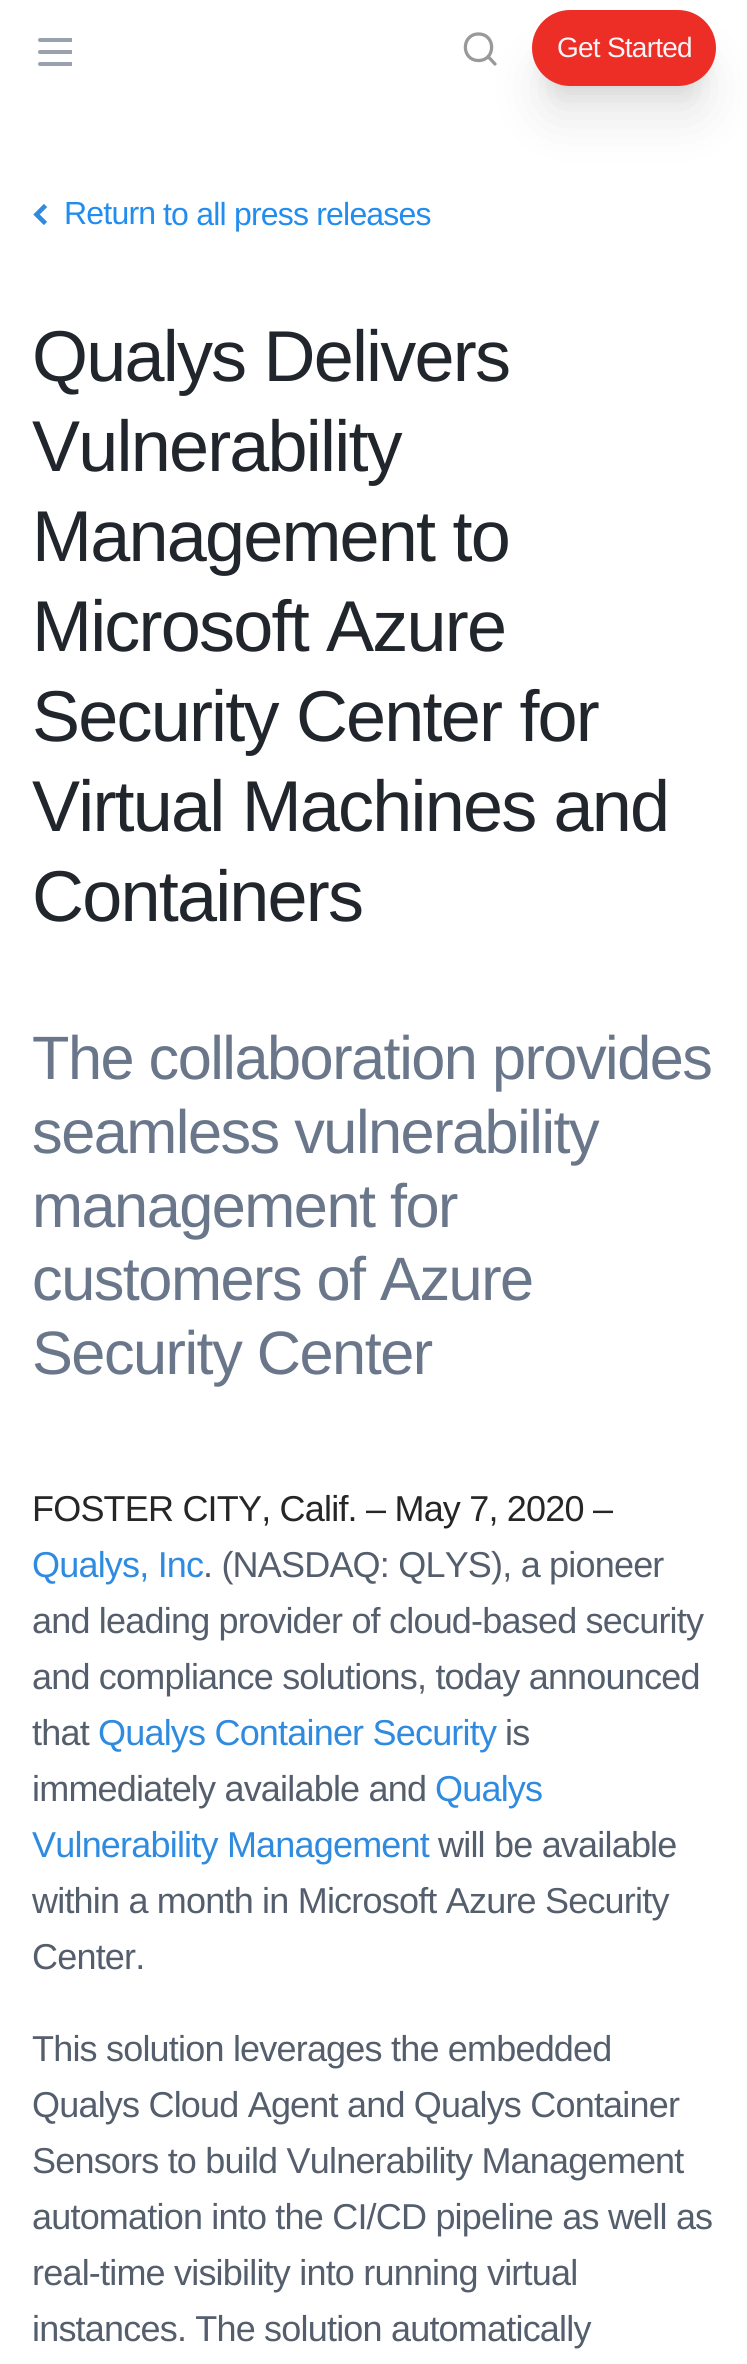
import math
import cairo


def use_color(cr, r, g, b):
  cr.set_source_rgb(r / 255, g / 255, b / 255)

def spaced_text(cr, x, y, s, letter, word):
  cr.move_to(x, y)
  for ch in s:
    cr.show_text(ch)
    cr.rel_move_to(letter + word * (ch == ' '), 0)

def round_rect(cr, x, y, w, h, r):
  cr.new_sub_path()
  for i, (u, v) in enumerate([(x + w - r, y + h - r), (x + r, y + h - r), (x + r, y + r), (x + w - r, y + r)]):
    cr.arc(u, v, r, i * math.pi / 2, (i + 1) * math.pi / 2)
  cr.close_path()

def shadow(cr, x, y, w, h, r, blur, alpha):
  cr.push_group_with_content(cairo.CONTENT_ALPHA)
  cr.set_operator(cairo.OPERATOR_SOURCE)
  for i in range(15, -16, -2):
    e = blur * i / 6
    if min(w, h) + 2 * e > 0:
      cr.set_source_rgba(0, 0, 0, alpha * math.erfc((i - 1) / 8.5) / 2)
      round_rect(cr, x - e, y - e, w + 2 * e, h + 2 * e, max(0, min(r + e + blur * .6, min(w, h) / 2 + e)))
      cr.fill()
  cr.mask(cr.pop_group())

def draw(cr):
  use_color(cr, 255, 255, 255)
  cr.paint()
  cr.save()
  cr.rectangle(32, 28, 40, 40)
  cr.clip()
  cr.new_path()
  cr.move_to(40, 40)
  cr.line_to(72, 40)
  cr.move_to(40, 52)
  cr.line_to(72, 52)
  cr.move_to(40, 64)
  cr.line_to(72, 64)
  use_color(cr, 153, 161, 175)
  cr.set_line_width(4)
  cr.set_line_cap(cairo.LINE_CAP_ROUND)
  cr.stroke()
  cr.restore()
  use_color(cr, 0, 0, 0)
  shadow(cr, 542, 60, 164, 56, 28, 25, 0.1)
  cr.new_path()
  cr.move_to(478.5, 60.5)
  cr.curve_to(496, 60.5, 496, 34, 478.5, 34)
  cr.curve_to(461, 34, 461, 60.5, 478.5, 60.5)
  cr.close_path()
  cr.move_to(495, 64)
  cr.line_to(488, 56.5)
  use_color(cr, 153, 153, 153)
  cr.set_line_width(3.3)
  cr.set_line_cap(cairo.LINE_CAP_ROUND)
  cr.set_line_join(cairo.LINE_JOIN_ROUND)
  cr.stroke()
  use_color(cr, 0, 0, 0)
  shadow(cr, 544, 38, 160, 52, 26, 10, 0.1)
  use_color(cr, 237, 46, 38)
  round_rect(cr, 532, 10, 184, 76, 38)
  cr.fill()
  cr.new_path()
  cr.move_to(45.5, 223.5)
  cr.line_to(36.5, 214.5)
  cr.line_to(45.5, 205.5)
  use_color(cr, 46, 139, 224)
  cr.set_line_width(4.6)
  cr.set_line_cap(cairo.LINE_CAP_BUTT)
  cr.set_line_join(cairo.LINE_JOIN_MITER)
  cr.stroke()
  cr.select_font_face("Liberation Sans")
  cr.set_font_size(28)
  use_color(cr, 243, 245, 248)
  spaced_text(cr, 557, 57, "Get Started", -0.75, 0)
  cr.set_font_size(32)
  use_color(cr, 34, 140, 239)
  spaced_text(cr, 64, 224, "Return", -0.8, 0)
  spaced_text(cr, 163, 225, "to all press releases", -0.8, 0)
  cr.set_font_size(72)
  use_color(cr, 33, 37, 44)
  spaced_text(cr, 32, 381, "Qualys Delivers", -1.8, 0)
  spaced_text(cr, 32, 471, "Vulnerability", -1.8, 0)
  spaced_text(cr, 32, 561, "Management to", -1.8, 0)
  spaced_text(cr, 32, 651, "Microsoft Azure", -1.8, 0)
  spaced_text(cr, 32, 741, "Security Center for", -1.8, 0)
  spaced_text(cr, 32, 831, "Virtual Machines and", -1.8, 0)
  spaced_text(cr, 32, 921, "Containers", -1.8, 0)
  cr.set_font_size(61.25)
  use_color(cr, 106, 119, 139)
  spaced_text(cr, 32, 1079, "The collaboration provides", -1.5, 0)
  spaced_text(cr, 32, 1153, "seamless vulnerability", -1.5, 0)
  spaced_text(cr, 32, 1227, "management for", -1.5, 0)
  spaced_text(cr, 32, 1300, "customers of Azure", -1.5, 0)
  spaced_text(cr, 32, 1374, "Security Center", -1.5, 0)
  cr.set_font_size(36)
  use_color(cr, 38, 38, 38)
  spaced_text(cr, 32, 1521, "FOSTER CITY, Calif. – May 7, 2020 –", -0.8, 0)
  use_color(cr, 46, 139, 224)
  spaced_text(cr, 32, 1577, "Qualys, Inc", -0.8, 0)
  use_color(cr, 84, 94, 108)
  spaced_text(cr, 203, 1577, ". (NASDAQ: QLYS), a pioneer", -0.8, 0)
  spaced_text(cr, 32, 1633, "and leading provider of cloud-based security", -0.8, 0)
  spaced_text(cr, 32, 1689, "and compliance solutions, today announced", -0.8, 0)
  spaced_text(cr, 32, 1745, "that", -0.8, 0)
  use_color(cr, 46, 139, 224)
  spaced_text(cr, 98, 1745, "Qualys Container Security", -0.8, 0)
  use_color(cr, 84, 94, 108)
  spaced_text(cr, 505, 1745, "is", -0.8, 0)
  spaced_text(cr, 32, 1801, "immediately available and", -0.8, 0)
  use_color(cr, 46, 139, 224)
  spaced_text(cr, 435, 1801, "Qualys", -0.8, 0)
  spaced_text(cr, 32, 1857, "Vulnerability Management", -0.8, 0)
  use_color(cr, 84, 94, 108)
  spaced_text(cr, 438, 1857, "will be available", -0.8, 0)
  spaced_text(cr, 32, 1913, "within a month in Microsoft Azure Security", -0.8, 0)
  spaced_text(cr, 32, 1969, "Center.", -0.8, 0)
  spaced_text(cr, 32, 2061, "This solution leverages the embedded", -0.8, 0)
  spaced_text(cr, 32, 2117, "Qualys Cloud Agent and Qualys Container", -0.8, 0)
  spaced_text(cr, 32, 2173, "Sensors to build Vulnerability Management", -0.8, 0)
  spaced_text(cr, 32, 2229, "automation into the CI/CD pipeline as well as", -0.8, 0)
  spaced_text(cr, 32, 2285, "real-time visibility into running virtual", -0.8, 0)
  spaced_text(cr, 32, 2341, "instances. The solution automatically", -0.8, 0)


surface = cairo.ImageSurface(cairo.FORMAT_RGB24, 747, 2364)
cr = cairo.Context(surface)
options = cairo.FontOptions()
options.set_hint_metrics(cairo.HINT_METRICS_OFF)
options.set_hint_style(cairo.HINT_STYLE_NONE)
cr.set_font_options(options)
cr.set_miter_limit(4)
draw(cr)
surface.write_to_png("out.png")
